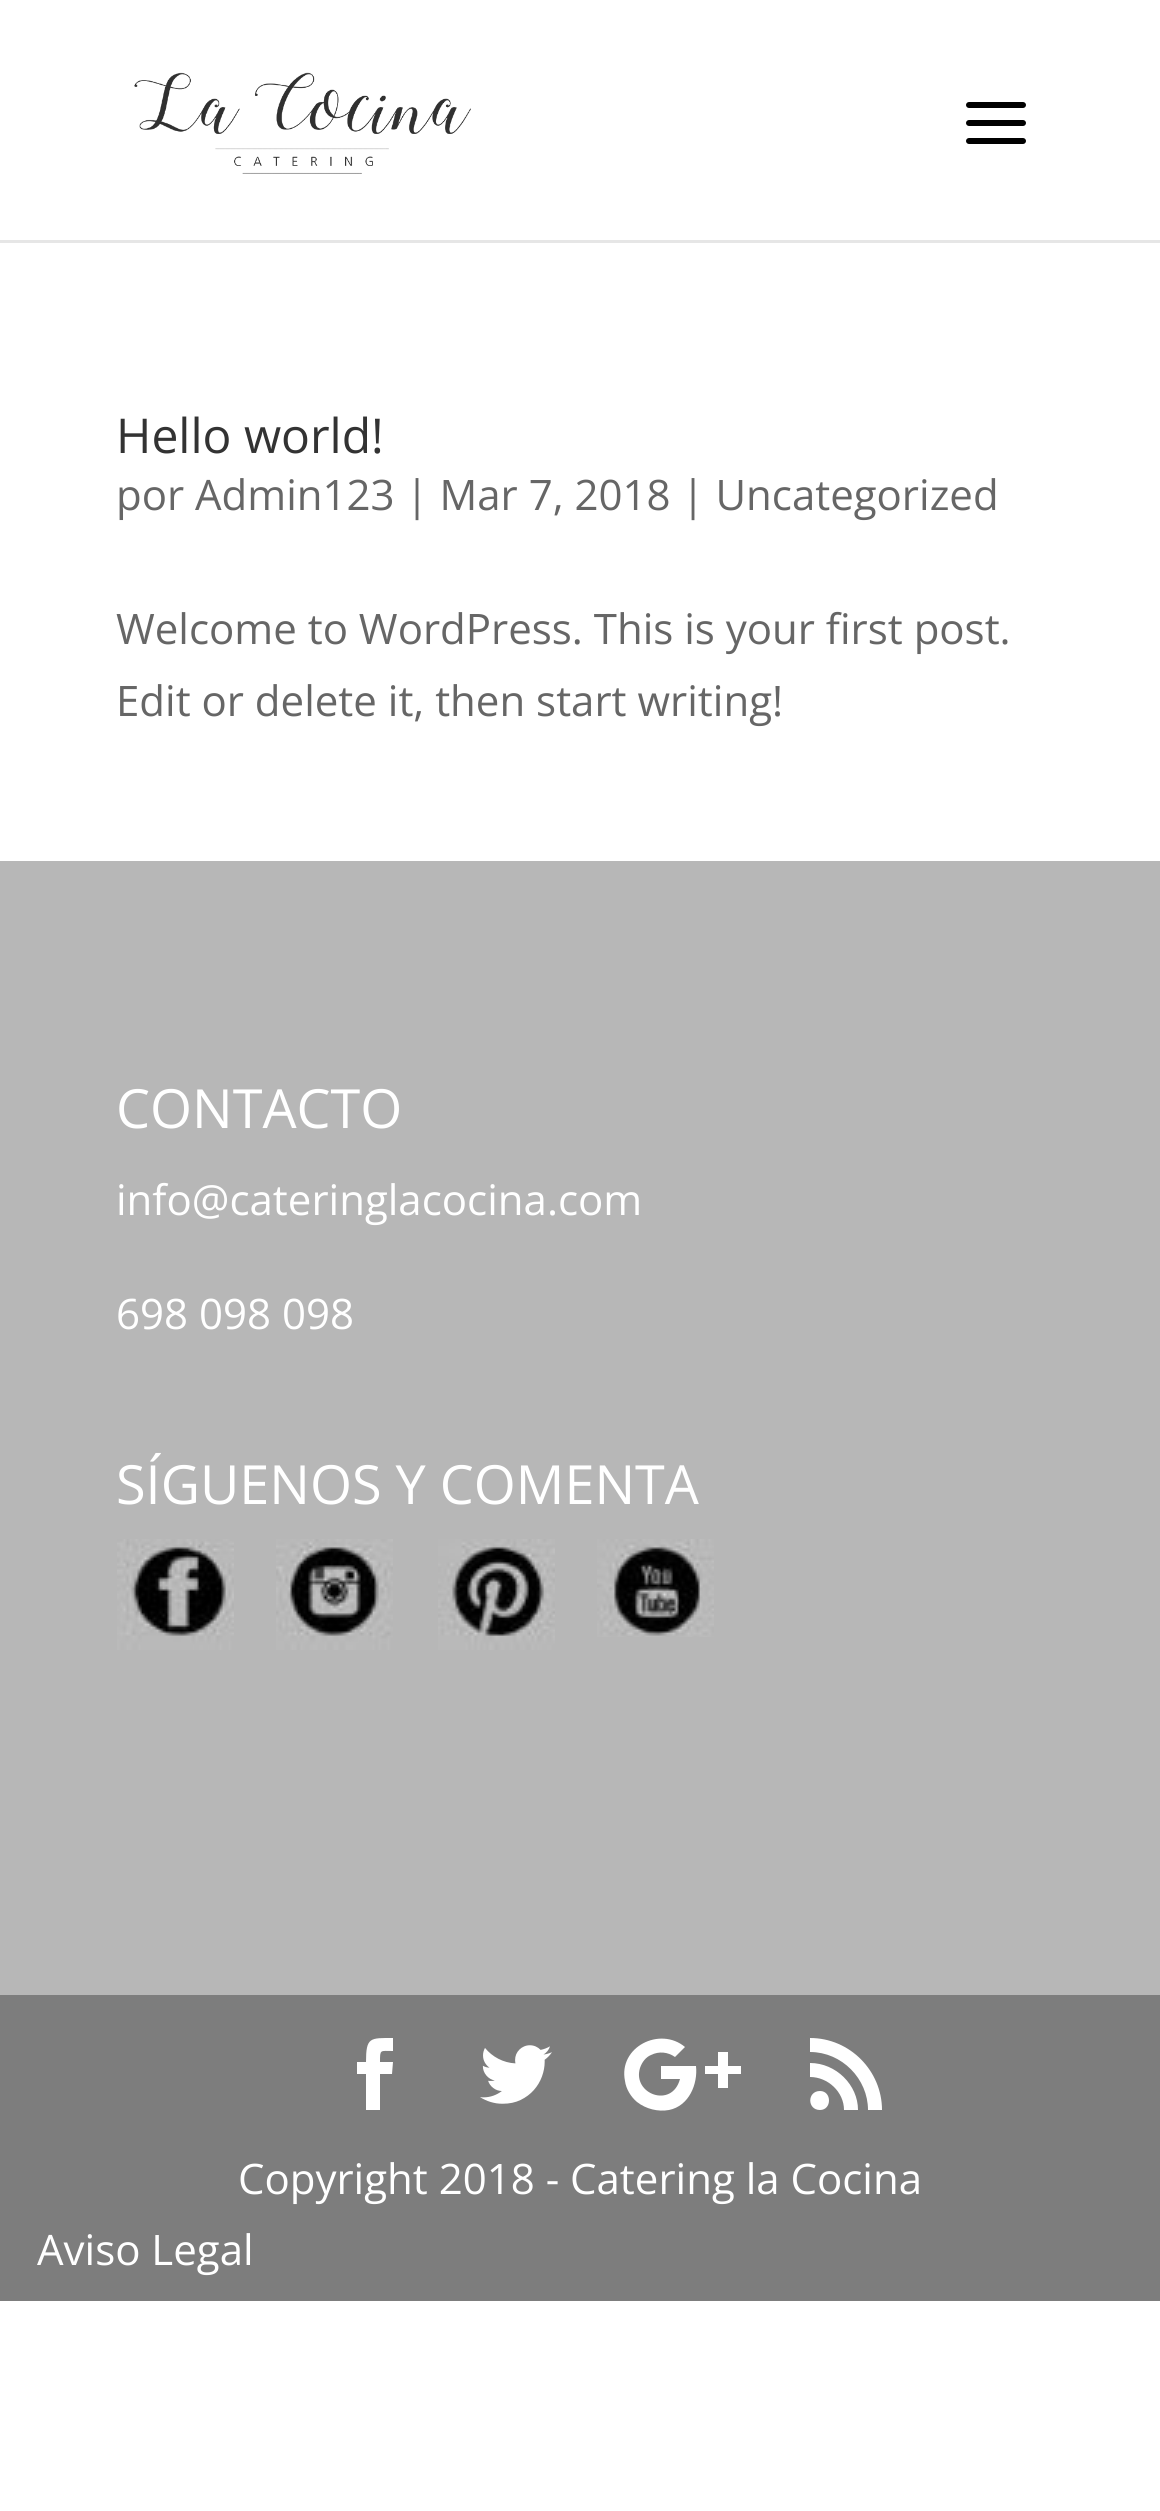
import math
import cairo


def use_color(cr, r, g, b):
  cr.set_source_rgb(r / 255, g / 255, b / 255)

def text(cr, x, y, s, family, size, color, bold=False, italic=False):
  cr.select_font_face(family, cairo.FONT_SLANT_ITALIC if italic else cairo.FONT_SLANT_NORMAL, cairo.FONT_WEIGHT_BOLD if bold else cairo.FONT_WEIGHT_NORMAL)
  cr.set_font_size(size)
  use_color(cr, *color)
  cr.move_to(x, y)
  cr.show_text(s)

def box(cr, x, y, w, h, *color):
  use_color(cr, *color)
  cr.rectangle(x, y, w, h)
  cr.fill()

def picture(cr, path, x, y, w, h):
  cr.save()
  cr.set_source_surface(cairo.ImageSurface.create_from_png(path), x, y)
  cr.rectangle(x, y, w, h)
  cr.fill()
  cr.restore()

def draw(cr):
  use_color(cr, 255, 255, 255)
  cr.paint()
  box(cr, 0, 240, 1160, 3, 230, 230, 230)
  picture(cr, "img_01.png", 134, 72, 337, 102)
  picture(cr, "img_02.png", 966, 102, 60, 42)
  box(cr, 0, 861, 1160, 1134, 183, 183, 183)
  picture(cr, "img_03.png", 117, 1539, 117, 111)
  picture(cr, "img_04.png", 276, 1539, 117, 111)
  picture(cr, "img_05.png", 438, 1539, 117, 111)
  picture(cr, "img_06.png", 597, 1539, 117, 98)
  box(cr, 0, 1995, 1160, 306, 125, 125, 125)
  use_color(cr, 255, 255, 255)
  cr.new_path()
  cr.move_to(366, 2110)
  cr.line_to(380, 2110)
  cr.line_to(380, 2074)
  cr.line_to(392, 2074)
  cr.line_to(393, 2062)
  cr.line_to(380, 2062)
  cr.curve_to(380, 2049, 380, 2051, 393, 2051)
  cr.line_to(393, 2038)
  cr.curve_to(370, 2038, 366, 2037, 366, 2062)
  cr.line_to(357, 2062)
  cr.line_to(357, 2074)
  cr.line_to(366, 2074)
  cr.close_path()
  cr.fill()
  picture(cr, "img_07.png", 480, 2045, 72, 59)
  cr.new_path()
  cr.move_to(661, 2066)
  cr.line_to(661, 2079)
  cr.line_to(680, 2079)
  cr.curve_to(672, 2109, 632, 2094, 640, 2068)
  cr.curve_to(642, 2062, 646, 2057, 651, 2055)
  cr.curve_to(659, 2051, 668, 2052, 675, 2057)
  cr.line_to(685, 2047)
  cr.curve_to(660, 2026, 618, 2047, 625, 2081)
  cr.curve_to(626, 2089, 631, 2097, 637, 2102)
  cr.curve_to(646, 2109, 658, 2112, 669, 2110)
  cr.curve_to(689, 2106, 698, 2084, 696, 2066)
  cr.close_path()
  cr.move_to(741, 2066)
  cr.line_to(728, 2066)
  cr.line_to(728, 2052)
  cr.line_to(718, 2052)
  cr.line_to(718, 2066)
  cr.line_to(705, 2066)
  cr.line_to(705, 2074)
  cr.line_to(718, 2074)
  cr.line_to(718, 2088)
  cr.line_to(728, 2088)
  cr.line_to(728, 2074)
  cr.line_to(741, 2074)
  cr.close_path()
  cr.fill()
  cr.new_path()
  cr.move_to(810, 2038)
  cr.line_to(810, 2052)
  cr.curve_to(842, 2052, 868, 2079, 868, 2110)
  cr.line_to(882, 2110)
  cr.curve_to(882, 2071, 850, 2038, 810, 2038)
  cr.close_path()
  cr.move_to(844, 2110)
  cr.line_to(858, 2110)
  cr.curve_to(858, 2085, 836, 2063, 810, 2063)
  cr.line_to(810, 2077)
  cr.curve_to(828, 2077, 844, 2092, 844, 2110)
  cr.close_path()
  cr.move_to(820, 2110)
  cr.curve_to(832, 2110, 832, 2091, 820, 2091)
  cr.curve_to(807, 2091, 807, 2110, 820, 2110)
  cr.close_path()
  cr.fill()
  text(cr, 116, 453, "Hello world!", "Open Sans", 48, (51, 51, 51))
  text(cr, 116, 510, "por Admin123 | Mar 7, 2018 | Uncategorized", "Open Sans", 42, (102, 102, 102))
  text(cr, 116, 644, "Welcome to WordPress. This is your first post.", "Open Sans", 42, (102, 102, 102))
  text(cr, 116, 716, "Edit or delete it, then start writing!", "Open Sans", 42, (102, 102, 102))
  text(cr, 116, 1128, "CONTACTO", "Open Sans", 54, (255, 255, 255))
  text(cr, 116, 1215, "info@cateringlacocina.com", "Open Sans", 42, (255, 255, 255))
  text(cr, 116, 1329, "698 098 098", "Open Sans", 42, (255, 255, 255))
  text(cr, 116, 1504, "SÍGUENOS Y COMENTA", "Open Sans", 54, (255, 255, 255))
  text(cr, 238, 2194, "Copyright 2018 - Catering la Cocina", "Open Sans", 42, (255, 255, 255))
  text(cr, 37, 2265, "Aviso Legal", "Open Sans", 42, (255, 255, 255))


surface = cairo.ImageSurface(cairo.FORMAT_RGB24, 1160, 2511)
cr = cairo.Context(surface)
options = cairo.FontOptions()
options.set_hint_metrics(cairo.HINT_METRICS_OFF)
options.set_hint_style(cairo.HINT_STYLE_NONE)
cr.set_font_options(options)
cr.set_miter_limit(4)
draw(cr)
surface.write_to_png("out.png")
